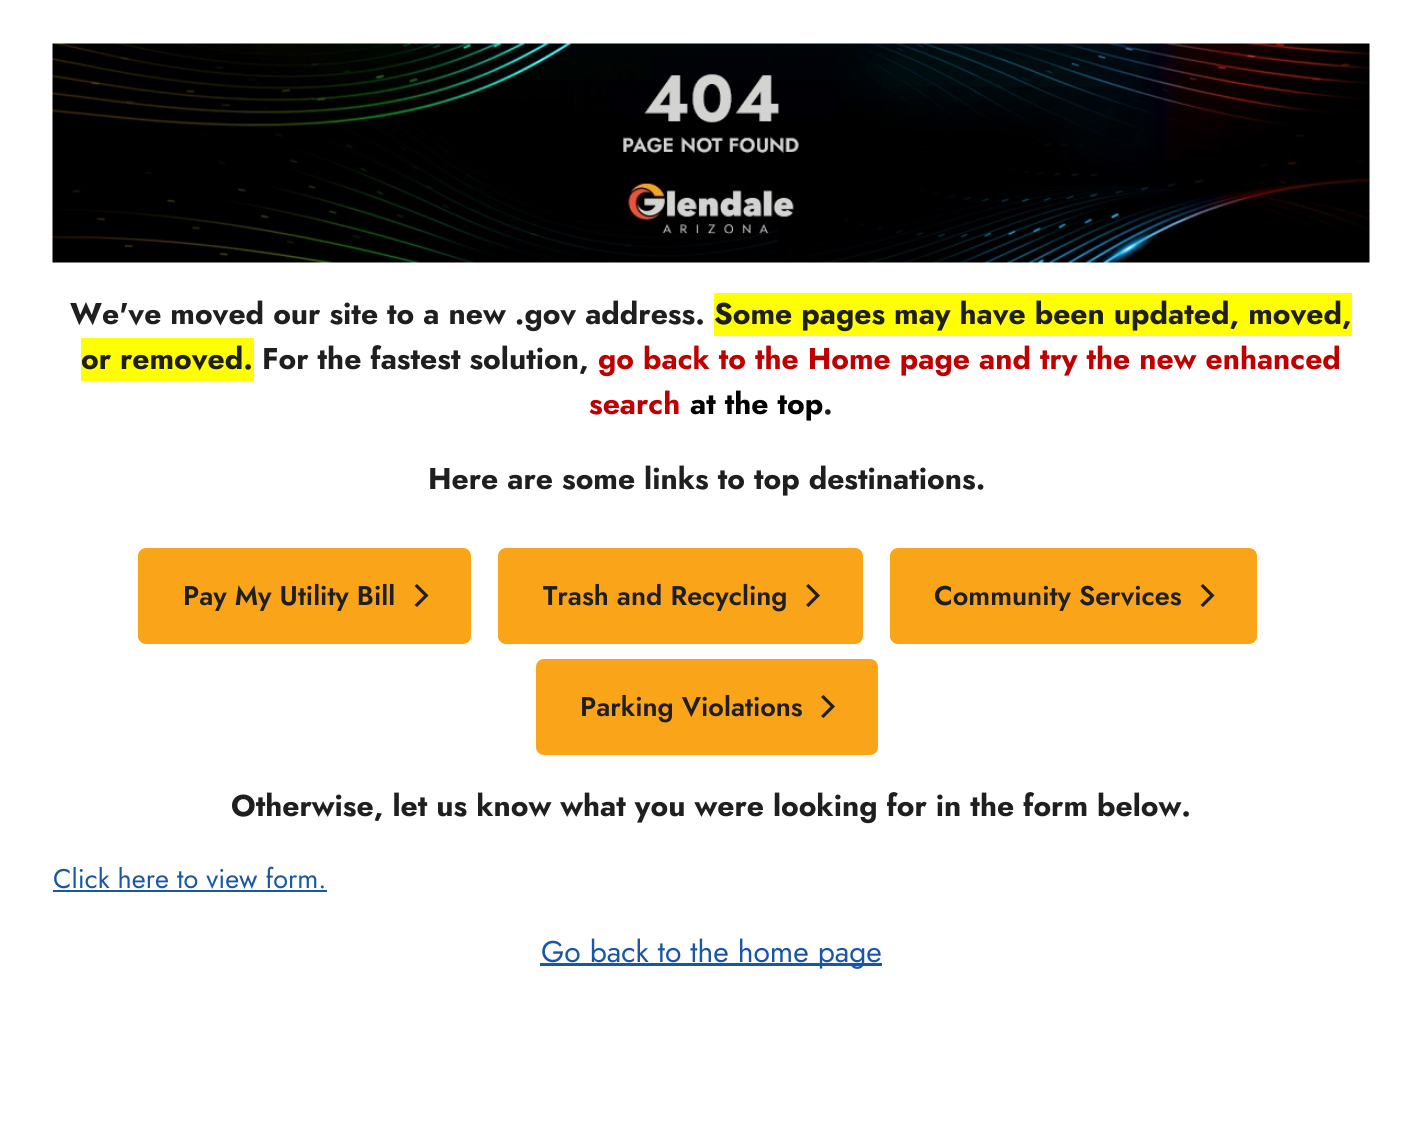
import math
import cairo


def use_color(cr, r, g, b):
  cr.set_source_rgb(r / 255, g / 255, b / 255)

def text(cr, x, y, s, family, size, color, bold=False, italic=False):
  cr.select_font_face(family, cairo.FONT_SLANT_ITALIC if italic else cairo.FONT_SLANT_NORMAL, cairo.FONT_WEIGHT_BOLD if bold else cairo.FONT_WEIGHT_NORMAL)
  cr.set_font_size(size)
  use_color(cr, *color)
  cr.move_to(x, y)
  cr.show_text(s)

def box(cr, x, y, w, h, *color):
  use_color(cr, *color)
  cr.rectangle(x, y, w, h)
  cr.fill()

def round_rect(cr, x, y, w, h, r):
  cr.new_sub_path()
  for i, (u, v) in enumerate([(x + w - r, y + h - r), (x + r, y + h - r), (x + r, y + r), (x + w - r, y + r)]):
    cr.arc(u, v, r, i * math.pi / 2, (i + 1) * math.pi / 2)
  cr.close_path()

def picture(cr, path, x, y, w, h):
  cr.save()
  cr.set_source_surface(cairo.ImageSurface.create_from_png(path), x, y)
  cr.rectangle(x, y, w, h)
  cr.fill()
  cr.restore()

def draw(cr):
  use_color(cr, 255, 255, 255)
  cr.paint()
  picture(cr, "img_01.png", 52, 43, 1318, 220)
  box(cr, 714, 293, 638, 43, 255, 255, 0)
  box(cr, 81, 338, 173, 43, 255, 255, 0)
  use_color(cr, 250, 164, 26)
  round_rect(cr, 138, 548, 333, 96, 8)
  cr.fill()
  use_color(cr, 31, 31, 31)
  cr.new_path()
  cr.move_to(417, 607)
  cr.line_to(414.5, 605)
  cr.line_to(424, 595.5)
  cr.line_to(414.5, 586)
  cr.line_to(417, 584)
  cr.line_to(428.5, 595.5)
  cr.close_path()
  cr.fill()
  use_color(cr, 250, 164, 26)
  round_rect(cr, 498, 548, 365, 96, 8)
  cr.fill()
  use_color(cr, 31, 31, 31)
  cr.new_path()
  cr.move_to(808.5, 607)
  cr.line_to(806, 605)
  cr.line_to(815.5, 595.5)
  cr.line_to(806, 586)
  cr.line_to(808.5, 584)
  cr.line_to(820, 595.5)
  cr.close_path()
  cr.fill()
  use_color(cr, 250, 164, 26)
  round_rect(cr, 890, 548, 367, 96, 8)
  cr.fill()
  use_color(cr, 31, 31, 31)
  cr.new_path()
  cr.move_to(1203, 607)
  cr.line_to(1200.5, 605)
  cr.line_to(1210, 595.5)
  cr.line_to(1200.5, 586)
  cr.line_to(1203, 584)
  cr.line_to(1214.5, 595.5)
  cr.close_path()
  cr.fill()
  use_color(cr, 250, 164, 26)
  round_rect(cr, 536, 659, 342, 96, 8)
  cr.fill()
  use_color(cr, 31, 31, 31)
  cr.new_path()
  cr.move_to(823.5, 718)
  cr.line_to(821, 716)
  cr.line_to(830.5, 706.5)
  cr.line_to(821, 697)
  cr.line_to(823.5, 695)
  cr.line_to(835, 706.5)
  cr.close_path()
  cr.fill()
  box(cr, 53, 890, 274, 2, 26, 86, 168)
  box(cr, 540, 963, 342, 3, 26, 86, 168)
  text(cr, 70, 324, "We've moved our site to a new .gov address.", "Jost", 30, (31, 31, 31), bold=True)
  text(cr, 714, 324, "Some pages may have been updated, moved,", "Jost", 30, (31, 31, 31), bold=True)
  text(cr, 81, 369, "or removed. For the fastest solution,", "Jost", 30, (31, 31, 31), bold=True)
  text(cr, 598, 369, "go back to the Home page and try the new enhanced", "Jost", 30, (192, 0, 0), bold=True)
  text(cr, 589, 414, "search", "Jost", 30, (192, 0, 0), bold=True)
  text(cr, 690, 414, "at the top", "Jost", 30, (0, 0, 0), bold=True)
  text(cr, 823, 414, ".", "Jost", 30, (31, 31, 31), bold=True)
  text(cr, 428, 489, "Here are some links to top destinations.", "Jost", 30, (31, 31, 31), bold=True)
  text(cr, 183, 605, "Pay My Utility Bill", "Jost SemiBold", 27, (31, 31, 31))
  text(cr, 543, 605, "Trash and Recycling", "Jost SemiBold", 27, (31, 31, 31))
  text(cr, 934, 605, "Community Services", "Jost SemiBold", 27, (31, 31, 31))
  text(cr, 580, 716, "Parking Violations", "Jost SemiBold", 27, (31, 31, 31))
  text(cr, 231, 816, "Otherwise, let us know what you were looking for in the form below.", "Jost", 30, (31, 31, 31), bold=True)
  text(cr, 53, 888, "Click here to view form.", "Jost", 27, (26, 86, 168))
  text(cr, 541, 962, "Go back to the home page", "Jost", 30, (26, 86, 168))


surface = cairo.ImageSurface(cairo.FORMAT_RGB24, 1422, 1139)
cr = cairo.Context(surface)
options = cairo.FontOptions()
options.set_hint_metrics(cairo.HINT_METRICS_OFF)
options.set_hint_style(cairo.HINT_STYLE_NONE)
cr.set_font_options(options)
cr.set_miter_limit(4)
draw(cr)
surface.write_to_png("out.png")
